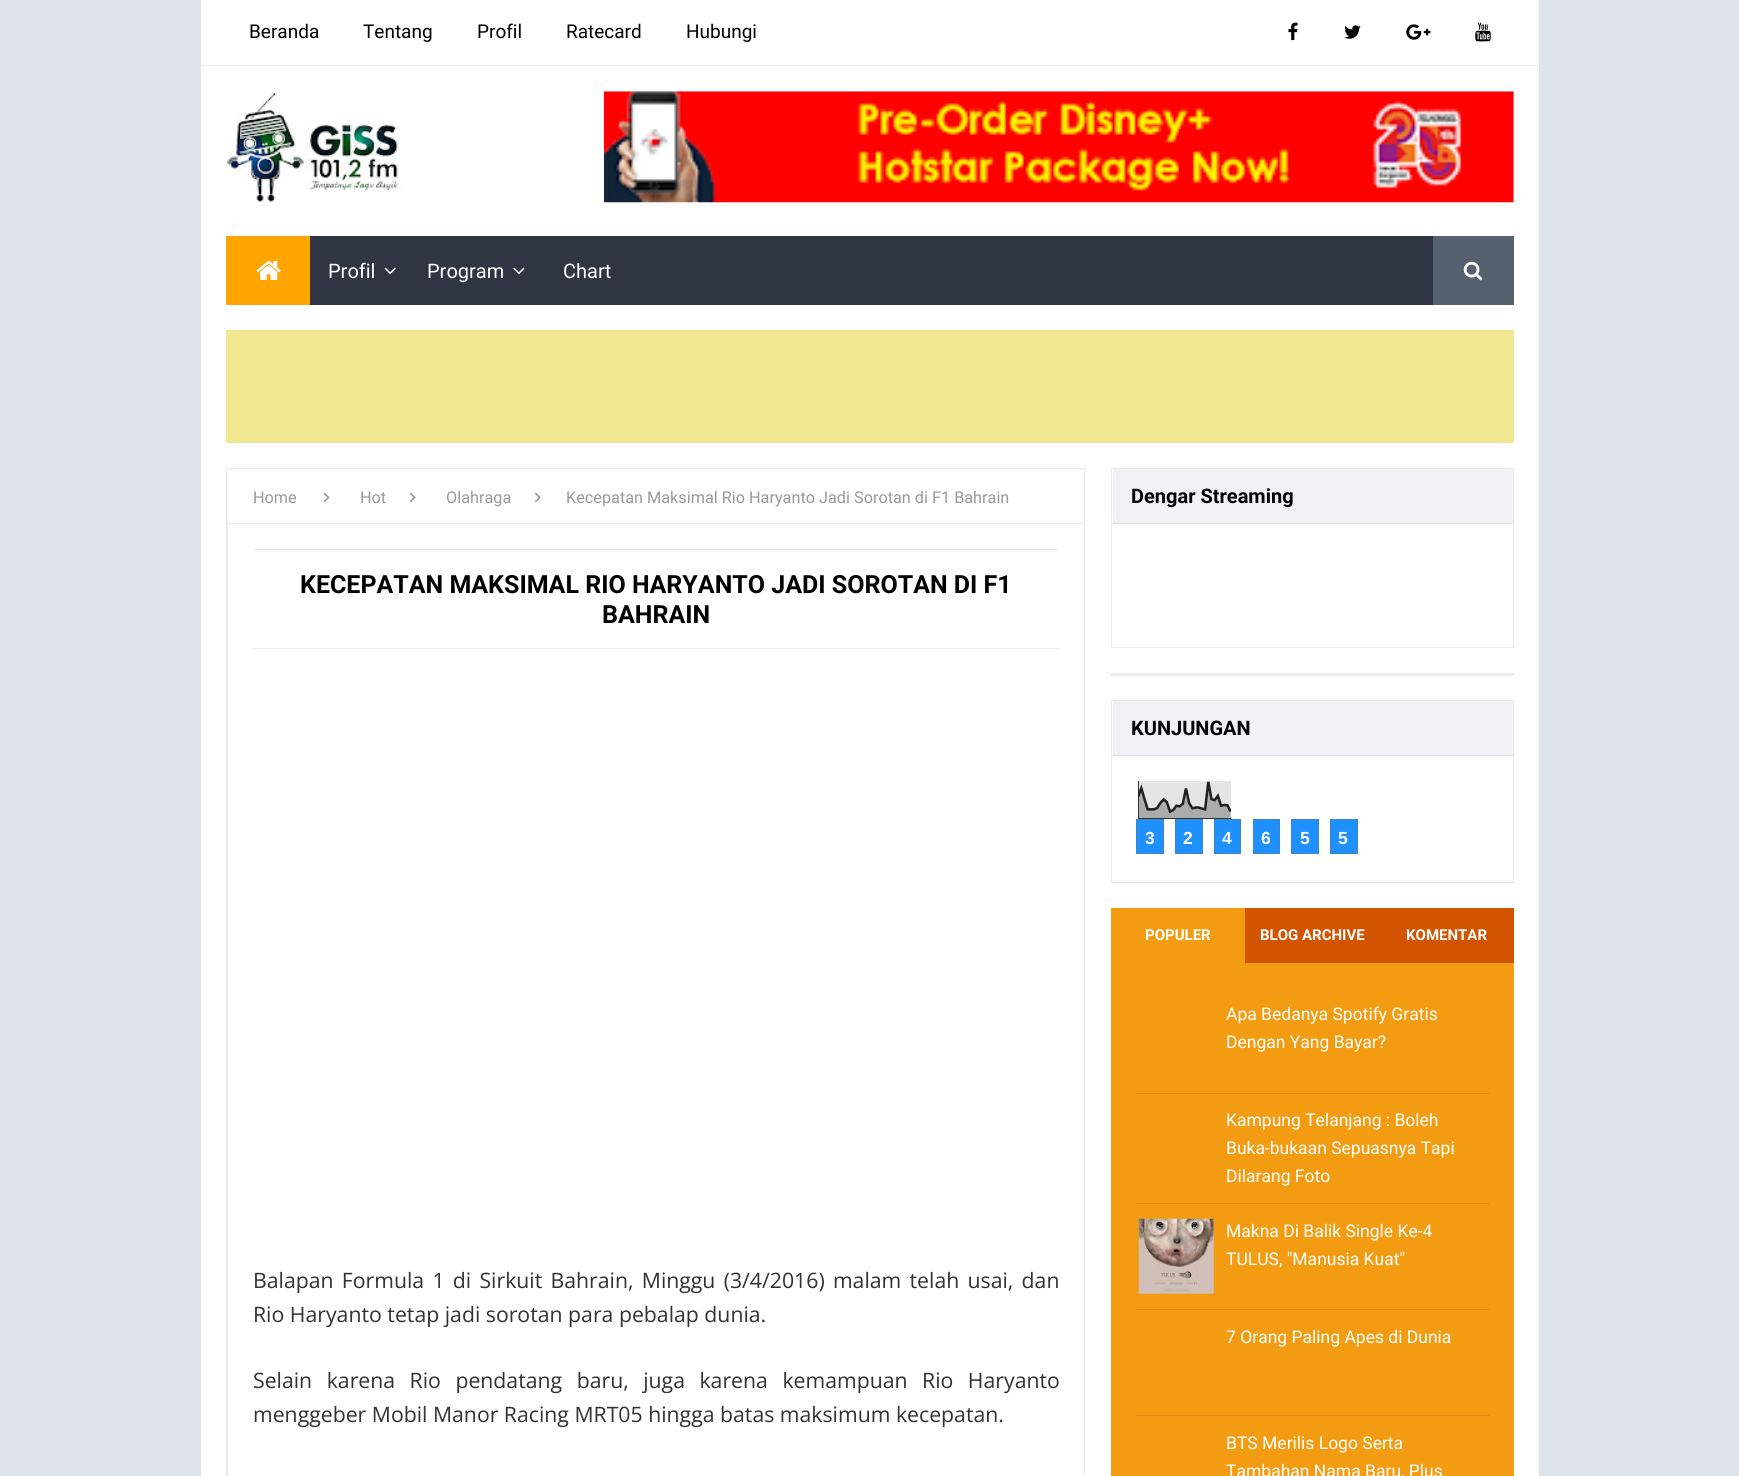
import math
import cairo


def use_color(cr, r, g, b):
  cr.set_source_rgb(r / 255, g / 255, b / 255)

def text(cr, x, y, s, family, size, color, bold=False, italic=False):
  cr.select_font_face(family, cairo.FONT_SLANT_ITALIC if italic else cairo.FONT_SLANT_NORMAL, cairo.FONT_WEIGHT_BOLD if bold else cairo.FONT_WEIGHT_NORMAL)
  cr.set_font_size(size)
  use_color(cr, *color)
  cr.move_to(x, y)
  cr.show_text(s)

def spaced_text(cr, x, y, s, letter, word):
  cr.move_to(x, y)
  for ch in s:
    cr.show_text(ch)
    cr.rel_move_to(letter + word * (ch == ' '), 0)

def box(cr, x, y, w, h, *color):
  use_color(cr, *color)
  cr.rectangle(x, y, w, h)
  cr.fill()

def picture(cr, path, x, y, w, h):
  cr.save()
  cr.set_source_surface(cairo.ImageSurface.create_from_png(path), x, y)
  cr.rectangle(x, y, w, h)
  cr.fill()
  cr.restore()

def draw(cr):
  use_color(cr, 223, 228, 234)
  cr.paint()
  box(cr, 201, 0, 1338, 1476, 255, 255, 255)
  box(cr, 201, 65, 1338, 1, 235, 235, 235)
  picture(cr, "img_01.png", 1288, 22, 10, 19)
  picture(cr, "img_02.png", 1344, 25, 17, 14)
  picture(cr, "img_03.png", 1406, 24, 25, 16)
  picture(cr, "img_04.png", 1475, 22, 16, 20)
  picture(cr, "img_05.png", 226, 91, 175, 111)
  picture(cr, "img_06.png", 603, 91, 911, 112)
  box(cr, 310, 236, 1123, 69, 47, 53, 66)
  box(cr, 226, 236, 84, 69, 255, 165, 2)
  picture(cr, "img_07.png", 256, 260, 25, 20)
  picture(cr, "img_08.png", 384, 267, 12, 8)
  picture(cr, "img_09.png", 513, 267, 12, 8)
  box(cr, 1433, 236, 81, 69, 87, 96, 111)
  picture(cr, "img_10.png", 1463, 261, 20, 20)
  box(cr, 226, 330, 1288, 113, 241, 231, 145)
  cr.rectangle(226.5, 468.5, 858, 55)
  use_color(cr, 235, 235, 235)
  cr.set_line_width(1)
  cr.stroke()
  picture(cr, "img_11.png", 323, 492, 7, 11)
  picture(cr, "img_12.png", 409, 492, 7, 11)
  picture(cr, "img_12.png", 534, 492, 7, 11)
  cr.new_path()
  cr.move_to(1085, 524)
  cr.line_to(1085, 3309)
  cr.line_to(1084, 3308)
  cr.line_to(1084, 524)
  cr.close_path()
  cr.fill()
  cr.new_path()
  cr.move_to(226, 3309)
  cr.line_to(226, 524)
  cr.line_to(228, 524)
  cr.line_to(228, 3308)
  cr.close_path()
  cr.fill()
  box(cr, 253, 549, 806, 1, 235, 235, 235)
  box(cr, 253, 648, 806, 1, 235, 235, 235)
  cr.rectangle(1111.5, 468.5, 402, 179)
  cr.stroke()
  box(cr, 1113, 469, 400, 54, 241, 242, 246)
  box(cr, 1113, 523, 400, 1, 222, 223, 226)
  box(cr, 1111, 673, 403, 3, 235, 235, 235)
  cr.rectangle(1111.5, 700.5, 402, 182)
  cr.stroke()
  box(cr, 1113, 701, 400, 54, 241, 242, 246)
  box(cr, 1113, 755, 400, 1, 222, 223, 226)
  picture(cr, "img_13.png", 1138, 781, 93, 38)
  use_color(cr, 30, 144, 255)
  cr.rectangle(1136.5, 819.5, 27, 34)
  cr.fill_preserve()
  use_color(cr, 64, 133, 193)
  cr.stroke()
  use_color(cr, 30, 144, 255)
  cr.rectangle(1175.5, 819.5, 27, 34)
  cr.fill_preserve()
  use_color(cr, 64, 133, 193)
  cr.stroke()
  use_color(cr, 30, 144, 255)
  cr.rectangle(1214.5, 819.5, 26, 34)
  cr.fill_preserve()
  use_color(cr, 64, 133, 193)
  cr.stroke()
  use_color(cr, 30, 144, 255)
  cr.rectangle(1253.5, 819.5, 26, 34)
  cr.fill_preserve()
  use_color(cr, 64, 133, 193)
  cr.stroke()
  use_color(cr, 30, 144, 255)
  cr.rectangle(1291.5, 819.5, 27, 34)
  cr.fill_preserve()
  use_color(cr, 64, 133, 193)
  cr.stroke()
  use_color(cr, 30, 144, 255)
  cr.rectangle(1330.5, 819.5, 27, 34)
  cr.fill_preserve()
  use_color(cr, 64, 133, 193)
  cr.stroke()
  box(cr, 1111, 908, 134, 55, 243, 156, 18)
  box(cr, 1245, 908, 269, 55, 211, 84, 0)
  box(cr, 1111, 963, 403, 513, 243, 156, 18)
  box(cr, 1136, 1093, 353, 1, 219, 140, 16)
  box(cr, 1136, 1203, 353, 1, 219, 140, 16)
  box(cr, 1136, 1309, 353, 1, 219, 140, 16)
  picture(cr, "img_14.png", 1138, 1218, 76, 76)
  box(cr, 1136, 1415, 353, 1, 219, 140, 16)
  text(cr, 249, 38, "Beranda", "Roboto", 19, (0, 0, 0))
  text(cr, 363, 38, "Tentang", "Roboto", 19, (0, 0, 0))
  text(cr, 477, 38, "Profil", "Roboto", 19, (0, 0, 0))
  text(cr, 566, 38, "Ratecard", "Roboto", 19, (0, 0, 0))
  text(cr, 686, 38, "Hubungi", "Roboto", 19, (0, 0, 0))
  text(cr, 328, 278, "Profil", "Roboto", 20, (255, 255, 255))
  text(cr, 427, 278, "Program", "Roboto", 20, (255, 255, 255))
  text(cr, 563, 278, "Chart", "Roboto", 20, (255, 255, 255))
  text(cr, 253, 503, "Home", "Roboto", 16.25, (153, 153, 153))
  text(cr, 360, 503, "Hot", "Roboto", 16.25, (153, 153, 153))
  text(cr, 446, 503, "Olahraga", "Roboto", 16.25, (153, 153, 153))
  text(cr, 566, 503, "Kecepatan Maksimal Rio Haryanto Jadi Sorotan di F1 Bahrain", "Roboto", 16.25, (153, 153, 153))
  text(cr, 300, 593, "KECEPATAN MAKSIMAL RIO HARYANTO JADI SOROTAN DI F1", "Roboto", 25, (0, 0, 0), bold=True)
  text(cr, 602, 623, "BAHRAIN", "Roboto", 25, (0, 0, 0), bold=True)
  cr.select_font_face("Open Sans")
  cr.set_font_size(21.25)
  use_color(cr, 50, 50, 51)
  spaced_text(cr, 253, 1288, "Balapan Formula 1 di Sirkuit Bahrain, Minggu (3/4/2016) malam telah usai, dan", 0, 2.75)
  text(cr, 253, 1322, "Rio Haryanto tetap jadi sorotan para pebalap dunia.", "Open Sans", 21.25, (50, 50, 51))
  spaced_text(cr, 253, 1388, "Selain karena Rio pendatang baru, juga karena kemampuan Rio Haryanto", 0, 9)
  text(cr, 253, 1422, "menggeber Mobil Manor Racing MRT05 hingga batas maksimum kecepatan.", "Open Sans", 21.25, (50, 50, 51))
  text(cr, 1131, 503, "Dengar Streaming", "Roboto", 20, (0, 0, 0), bold=True)
  text(cr, 1131, 735, "KUNJUNGAN", "Roboto", 20, (0, 0, 0), bold=True)
  text(cr, 1145, 844, "3", "Liberation Sans", 17.5, (255, 255, 255), bold=True)
  text(cr, 1183, 844, "2", "Liberation Sans", 17.5, (255, 255, 255), bold=True)
  text(cr, 1222, 844, "4", "Liberation Sans", 17.5, (255, 255, 255), bold=True)
  text(cr, 1261, 844, "6", "Liberation Sans", 17.5, (255, 255, 255), bold=True)
  text(cr, 1300, 844, "5", "Liberation Sans", 17.5, (255, 255, 255), bold=True)
  text(cr, 1338, 844, "5", "Liberation Sans", 17.5, (255, 255, 255), bold=True)
  text(cr, 1145, 940, "POPULER", "Roboto", 15, (255, 255, 255), bold=True)
  text(cr, 1260, 940, "BLOG ARCHIVE", "Roboto", 15, (255, 255, 255), bold=True)
  text(cr, 1406, 940, "KOMENTAR", "Roboto", 15, (255, 255, 255), bold=True)
  text(cr, 1226, 1020, "Apa Bedanya Spotify Gratis", "Roboto", 17.5, (255, 255, 255))
  text(cr, 1226, 1048, "Dengan Yang Bayar?", "Roboto", 17.5, (255, 255, 255))
  text(cr, 1226, 1126, "Kampung Telanjang : Boleh", "Roboto", 17.5, (255, 255, 255))
  text(cr, 1226, 1154, "Buka-bukaan Sepuasnya Tapi", "Roboto", 17.5, (255, 255, 255))
  text(cr, 1226, 1182, "Dilarang Foto", "Roboto", 17.5, (255, 255, 255))
  text(cr, 1226, 1237, "Makna Di Balik Single Ke-4", "Roboto", 17.5, (255, 255, 255))
  text(cr, 1226, 1265, "TULUS, \"Manusia Kuat\"", "Roboto", 17.5, (255, 255, 255))
  text(cr, 1226, 1343, "7 Orang Paling Apes di Dunia", "Roboto", 17.5, (255, 255, 255))
  text(cr, 1226, 1449, "BTS Merilis Logo Serta", "Roboto", 17.5, (255, 255, 255))
  text(cr, 1226, 1477, "Tambahan Nama Baru, Plus", "Roboto", 17.5, (255, 255, 255))


surface = cairo.ImageSurface(cairo.FORMAT_RGB24, 1739, 1476)
cr = cairo.Context(surface)
options = cairo.FontOptions()
options.set_hint_metrics(cairo.HINT_METRICS_OFF)
options.set_hint_style(cairo.HINT_STYLE_NONE)
cr.set_font_options(options)
cr.set_miter_limit(4)
draw(cr)
surface.write_to_png("out.png")
